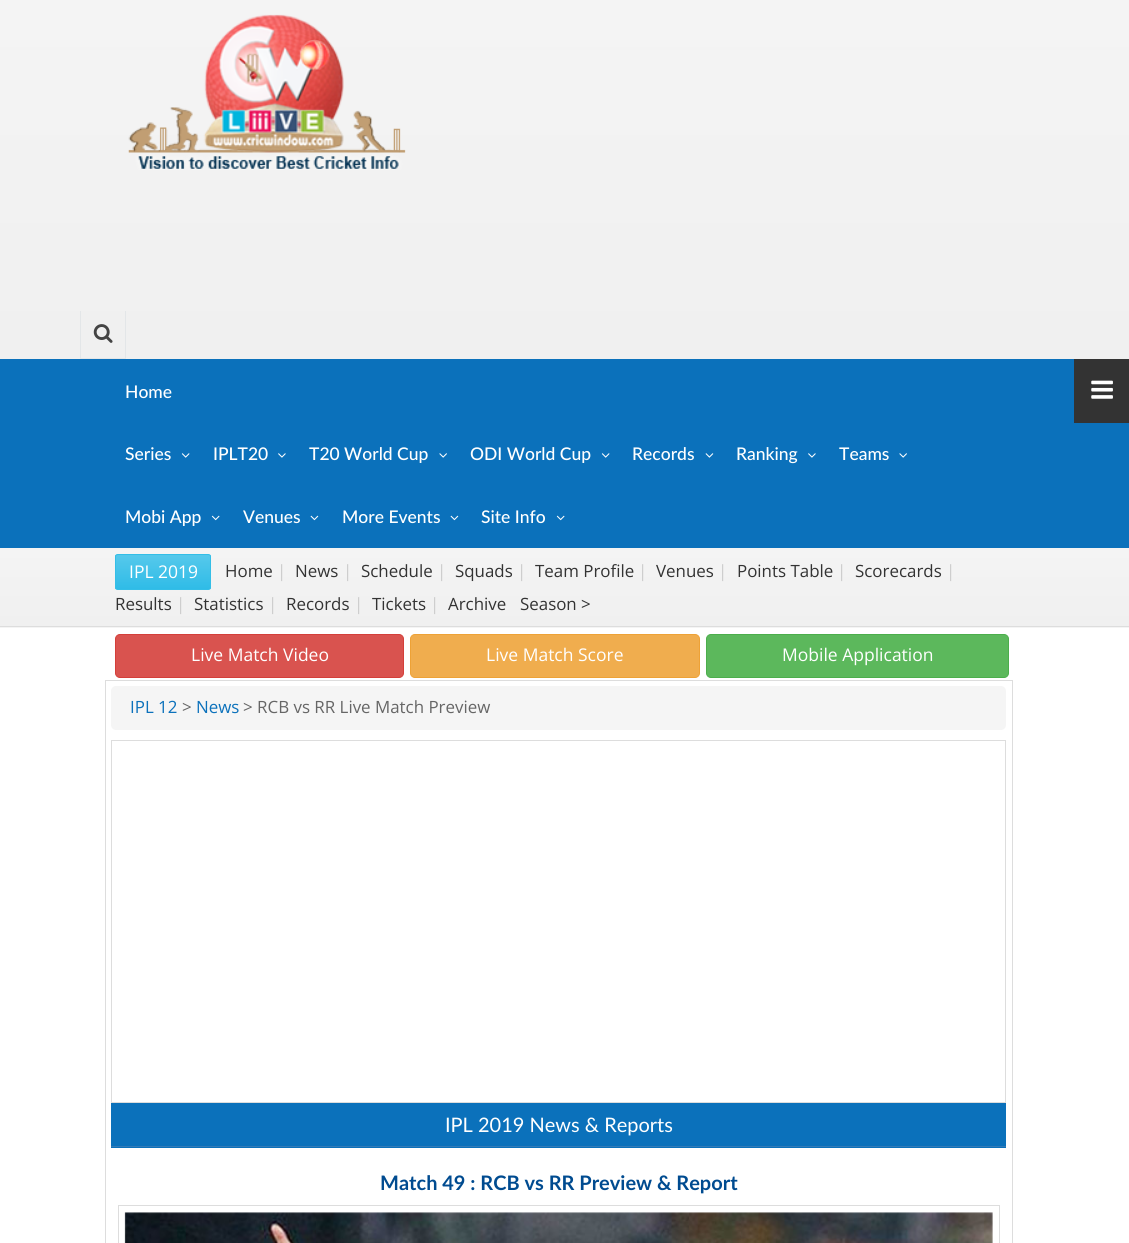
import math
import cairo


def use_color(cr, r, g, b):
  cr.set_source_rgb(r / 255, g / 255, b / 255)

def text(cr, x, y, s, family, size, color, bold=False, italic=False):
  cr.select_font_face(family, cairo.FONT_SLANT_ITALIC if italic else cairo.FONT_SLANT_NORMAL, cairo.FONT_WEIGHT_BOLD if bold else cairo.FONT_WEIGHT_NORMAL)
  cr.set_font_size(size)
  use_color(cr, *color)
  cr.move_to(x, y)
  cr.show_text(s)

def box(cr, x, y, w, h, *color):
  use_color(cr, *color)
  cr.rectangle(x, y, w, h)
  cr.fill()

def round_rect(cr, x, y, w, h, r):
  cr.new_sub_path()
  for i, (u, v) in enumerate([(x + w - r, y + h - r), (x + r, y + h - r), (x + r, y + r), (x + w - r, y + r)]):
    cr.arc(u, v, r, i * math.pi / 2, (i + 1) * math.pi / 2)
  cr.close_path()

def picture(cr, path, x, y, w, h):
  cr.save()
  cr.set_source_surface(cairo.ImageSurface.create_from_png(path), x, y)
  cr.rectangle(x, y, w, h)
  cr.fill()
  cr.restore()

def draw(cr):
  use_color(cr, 255, 255, 255)
  cr.paint()
  gradient = cairo.LinearGradient(565, 359, 565, 0)
  gradient.add_color_stop_rgba(0, 0.941, 0.941, 0.941, 1)
  gradient.add_color_stop_rgba(1, 0.957, 0.957, 0.957, 1)
  cr.set_source(gradient)
  cr.rectangle(0, 0, 1129, 359)
  cr.fill()
  picture(cr, "img_01.png", 128, 14, 278, 156)
  box(cr, 125, 311, 1, 48, 227, 230, 232)
  box(cr, 80, 358, 46, 1, 227, 230, 232)
  box(cr, 80, 311, 1, 48, 227, 230, 232)
  picture(cr, "img_02.png", 93, 324, 20, 19)
  box(cr, 0, 359, 1129, 189, 11, 113, 187)
  picture(cr, "img_03.png", 181, 453, 9, 5)
  picture(cr, "img_04.png", 278, 453, 8, 5)
  picture(cr, "img_05.png", 439, 453, 8, 5)
  picture(cr, "img_03.png", 601, 453, 9, 5)
  picture(cr, "img_06.png", 705, 453, 9, 5)
  picture(cr, "img_04.png", 808, 453, 8, 5)
  picture(cr, "img_05.png", 899, 453, 8, 5)
  picture(cr, "img_07.png", 211, 515, 9, 6)
  picture(cr, "img_08.png", 310, 515, 9, 6)
  picture(cr, "img_08.png", 450, 515, 9, 6)
  picture(cr, "img_07.png", 556, 515, 9, 6)
  box(cr, 1074, 359, 55, 64, 51, 51, 51)
  picture(cr, "img_09.png", 1091, 380, 22, 19)
  gradient = cairo.LinearGradient(565, 626, 565, 548)
  gradient.add_color_stop_rgba(0, 0.941, 0.941, 0.941, 1)
  gradient.add_color_stop_rgba(1, 0.957, 0.957, 0.957, 1)
  cr.set_source(gradient)
  cr.rectangle(0, 548, 1129, 78)
  cr.fill()
  gradient = cairo.LinearGradient(565, 705, 565, 626)
  gradient.add_color_stop_rgba(0, 0.941, 0.941, 0.941, 1)
  gradient.add_color_stop_rgba(1, 0.957, 0.957, 0.957, 1)
  cr.set_source(gradient)
  cr.rectangle(0, 627, 1129, 1)
  cr.fill()
  box(cr, 0, 626, 1129, 1, 221, 221, 221)
  cr.save()
  round_rect(cr, 115, 554, 96, 36, 2.5)
  cr.clip()
  gradient = cairo.LinearGradient(163, 555, 163, 589)
  gradient.add_color_stop_rgba(0.05, 0.329, 0.784, 0.922, 1)
  gradient.add_color_stop_rgba(1, 0.184, 0.737, 0.906, 1)
  cr.set_source(gradient)
  cr.rectangle(115, 555, 96, 34)
  cr.fill()
  cr.restore()
  round_rect(cr, 115.5, 554.5, 95, 35, 2)
  use_color(cr, 52, 190, 231)
  cr.set_line_width(1)
  cr.stroke()
  use_color(cr, 217, 83, 79)
  round_rect(cr, 115.5, 634.5, 288, 43, 4.5)
  cr.fill_preserve()
  use_color(cr, 212, 63, 58)
  cr.stroke()
  use_color(cr, 240, 173, 78)
  round_rect(cr, 410.5, 634.5, 289, 43, 4.5)
  cr.fill_preserve()
  use_color(cr, 238, 162, 54)
  cr.stroke()
  use_color(cr, 92, 184, 92)
  round_rect(cr, 706.5, 634.5, 302, 43, 4.5)
  cr.fill_preserve()
  use_color(cr, 76, 174, 76)
  cr.stroke()
  cr.rectangle(105.5, 680.5, 907, 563)
  use_color(cr, 221, 221, 221)
  cr.stroke()
  use_color(cr, 245, 245, 245)
  round_rect(cr, 111, 686, 895, 44, 5)
  cr.fill()
  cr.rectangle(111.5, 740.5, 894, 362)
  use_color(cr, 221, 221, 221)
  cr.stroke()
  box(cr, 111, 1103, 895, 45, 11, 113, 187)
  box(cr, 111, 1146, 895, 1, 51, 122, 183)
  cr.rectangle(118.5, 1205.5, 881, 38)
  use_color(cr, 221, 221, 221)
  cr.stroke()
  picture(cr, "img_10.png", 124, 1212, 869, 31)
  text(cr, 125, 398, "Home", "Lato Medium", 17.5, (255, 255, 255))
  text(cr, 125, 460, "Series", "Lato Medium", 17.5, (255, 255, 255))
  text(cr, 213, 460, "IPLT20", "Lato Medium", 17.5, (255, 255, 255))
  text(cr, 309, 460, "T20 World Cup", "Lato Medium", 17.5, (255, 255, 255))
  text(cr, 470, 460, "ODI World Cup", "Lato Medium", 17.5, (255, 255, 255))
  text(cr, 632, 460, "Records", "Lato Medium", 17.5, (255, 255, 255))
  text(cr, 736, 460, "Ranking", "Lato Medium", 17.5, (255, 255, 255))
  text(cr, 839, 460, "Teams", "Lato Medium", 17.5, (255, 255, 255))
  text(cr, 125, 523, "Mobi App", "Lato Medium", 17.5, (255, 255, 255))
  text(cr, 243, 523, "Venues", "Lato Medium", 17.5, (255, 255, 255))
  text(cr, 342, 523, "More Events", "Lato Medium", 17.5, (255, 255, 255))
  text(cr, 481, 523, "Site Info", "Lato Medium", 17.5, (255, 255, 255))
  text(cr, 129, 578, "IPL 2019", "Open Sans", 17.5, (255, 255, 255))
  text(cr, 225, 577, "Home", "Open Sans", 16.9, (51, 51, 51))
  text(cr, 277, 577, "|", "Open Sans", 16.9, (204, 204, 204))
  text(cr, 295, 577, "News", "Open Sans", 16.9, (51, 51, 51))
  text(cr, 343, 577, "|", "Open Sans", 16.9, (204, 204, 204))
  text(cr, 361, 577, "Schedule", "Open Sans", 16.9, (51, 51, 51))
  text(cr, 437, 577, "|", "Open Sans", 16.9, (204, 204, 204))
  text(cr, 455, 577, "Squads", "Open Sans", 16.9, (51, 51, 51))
  text(cr, 517, 577, "|", "Open Sans", 16.9, (204, 204, 204))
  text(cr, 535, 577, "Team Profile", "Open Sans", 16.9, (51, 51, 51))
  text(cr, 638, 577, "|", "Open Sans", 16.9, (204, 204, 204))
  text(cr, 656, 577, "Venues", "Open Sans", 16.9, (51, 51, 51))
  text(cr, 718, 577, "|", "Open Sans", 16.9, (204, 204, 204))
  text(cr, 737, 577, "Points Table", "Open Sans", 16.9, (51, 51, 51))
  text(cr, 837, 577, "|", "Open Sans", 16.9, (204, 204, 204))
  text(cr, 855, 577, "Scorecards", "Open Sans", 16.9, (51, 51, 51))
  text(cr, 946, 577, "|", "Open Sans", 16.9, (204, 204, 204))
  text(cr, 115, 610, "Results", "Open Sans", 16.9, (51, 51, 51))
  text(cr, 176, 610, "|", "Open Sans", 16.9, (204, 204, 204))
  text(cr, 194, 610, "Statistics", "Open Sans", 16.9, (51, 51, 51))
  text(cr, 268, 610, "|", "Open Sans", 16.9, (204, 204, 204))
  text(cr, 286, 610, "Records", "Open Sans", 16.9, (51, 51, 51))
  text(cr, 354, 610, "|", "Open Sans", 16.9, (204, 204, 204))
  text(cr, 372, 610, "Tickets", "Open Sans", 16.9, (51, 51, 51))
  text(cr, 430, 610, "|", "Open Sans", 16.9, (204, 204, 204))
  text(cr, 448, 610, "Archive", "Open Sans", 16.9, (51, 51, 51))
  text(cr, 520, 610, "Season >", "Open Sans", 16.9, (51, 51, 51))
  text(cr, 191, 661, "Live Match Video", "Open Sans", 17.5, (255, 255, 255))
  text(cr, 486, 661, "Live Match Score", "Open Sans", 17.5, (255, 255, 255))
  text(cr, 782, 661, "Mobile Application", "Open Sans", 17.5, (255, 255, 255))
  text(cr, 130, 713, "IPL 12", "Open Sans", 16.9, (11, 113, 187))
  text(cr, 182, 713, ">", "Open Sans", 16.9, (102, 102, 102))
  text(cr, 196, 713, "News", "Open Sans", 16.9, (11, 113, 187))
  text(cr, 243, 713, "> RCB vs RR Live Match Preview", "Open Sans", 16.9, (102, 102, 102))
  text(cr, 445, 1132, "IPL 2019 News & Reports", "Lato", 20, (255, 255, 255))
  text(cr, 380, 1190, "Match 49 : RCB vs RR Preview & Report", "Lato", 20, (0, 75, 144), bold=True)


surface = cairo.ImageSurface(cairo.FORMAT_RGB24, 1129, 1243)
cr = cairo.Context(surface)
options = cairo.FontOptions()
options.set_hint_metrics(cairo.HINT_METRICS_OFF)
options.set_hint_style(cairo.HINT_STYLE_NONE)
cr.set_font_options(options)
cr.set_miter_limit(4)
draw(cr)
surface.write_to_png("out.png")
